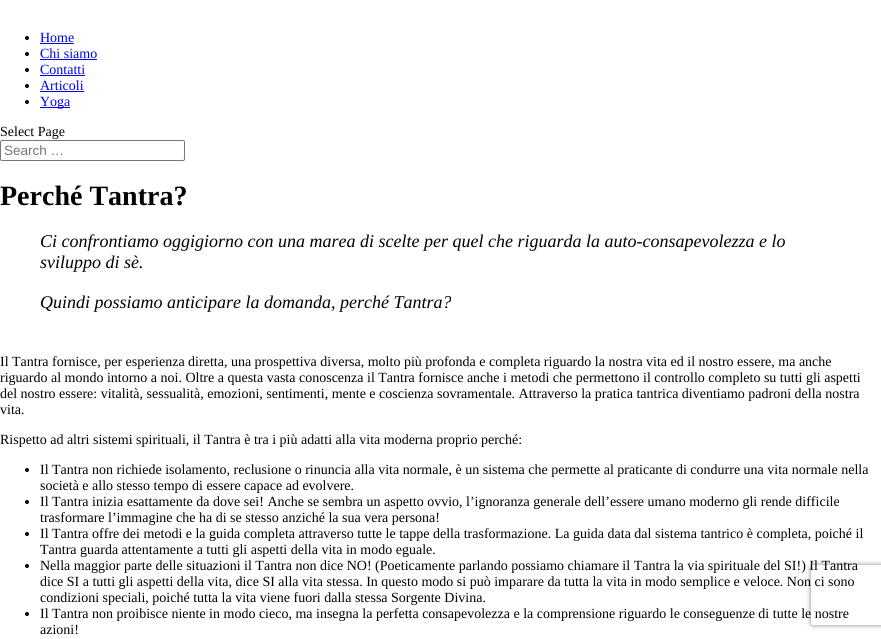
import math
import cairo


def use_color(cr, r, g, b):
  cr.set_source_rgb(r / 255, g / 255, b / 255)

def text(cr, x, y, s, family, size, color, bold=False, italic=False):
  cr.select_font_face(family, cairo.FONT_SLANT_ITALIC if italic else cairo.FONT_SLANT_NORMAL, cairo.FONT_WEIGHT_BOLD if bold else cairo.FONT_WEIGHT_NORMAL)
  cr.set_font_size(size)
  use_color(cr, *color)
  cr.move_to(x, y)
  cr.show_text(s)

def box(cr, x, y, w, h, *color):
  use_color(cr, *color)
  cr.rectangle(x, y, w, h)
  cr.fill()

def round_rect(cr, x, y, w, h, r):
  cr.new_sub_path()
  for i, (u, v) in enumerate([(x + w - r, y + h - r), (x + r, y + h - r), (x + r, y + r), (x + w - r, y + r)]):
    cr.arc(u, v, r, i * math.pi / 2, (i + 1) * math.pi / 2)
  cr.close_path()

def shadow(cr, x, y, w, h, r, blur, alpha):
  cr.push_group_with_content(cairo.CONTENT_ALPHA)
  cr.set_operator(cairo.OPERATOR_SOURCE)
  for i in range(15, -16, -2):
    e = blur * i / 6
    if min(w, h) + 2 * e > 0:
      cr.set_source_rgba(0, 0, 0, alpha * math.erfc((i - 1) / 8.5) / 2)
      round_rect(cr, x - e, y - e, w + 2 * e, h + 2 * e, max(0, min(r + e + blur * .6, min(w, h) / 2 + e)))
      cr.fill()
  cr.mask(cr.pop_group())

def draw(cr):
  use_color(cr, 255, 255, 255)
  cr.paint()
  use_color(cr, 0, 0, 0)
  cr.arc(27, 38, 2, 0, 2 * math.pi)
  cr.fill()
  box(cr, 40, 43, 34, 1, 0, 0, 238)
  use_color(cr, 0, 0, 0)
  cr.arc(27, 54, 2, 0, 2 * math.pi)
  cr.fill()
  box(cr, 40, 59, 57, 1, 0, 0, 238)
  use_color(cr, 0, 0, 0)
  cr.arc(27, 70, 2, 0, 2 * math.pi)
  cr.fill()
  box(cr, 40, 75, 45, 1, 0, 0, 238)
  use_color(cr, 0, 0, 0)
  cr.arc(27, 86, 2, 0, 2 * math.pi)
  cr.fill()
  box(cr, 40, 91, 44, 1, 0, 0, 238)
  use_color(cr, 0, 0, 0)
  cr.arc(27, 102, 2, 0, 2 * math.pi)
  cr.fill()
  box(cr, 40, 107, 30, 1, 0, 0, 238)
  round_rect(cr, 0.5, 140.5, 184, 20, 1.5)
  use_color(cr, 118, 118, 118)
  cr.set_line_width(1)
  cr.stroke()
  use_color(cr, 0, 0, 0)
  cr.arc(27, 470, 2, 0, 2 * math.pi)
  cr.fill()
  cr.arc(27, 502, 2, 0, 2 * math.pi)
  cr.fill()
  cr.arc(27, 534, 2, 0, 2 * math.pi)
  cr.fill()
  cr.arc(27, 566, 2, 0, 2 * math.pi)
  cr.fill()
  cr.arc(27, 614, 2, 0, 2 * math.pi)
  cr.fill()
  cr.save()
  cr.set_fill_rule(cairo.FILL_RULE_EVEN_ODD)
  cr.new_path()
  cr.move_to(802, 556)
  cr.line_to(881, 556)
  cr.line_to(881, 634)
  cr.line_to(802, 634)
  cr.close_path()
  cr.move_to(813, 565)
  cr.line_to(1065, 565)
  cr.curve_to(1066, 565, 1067, 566, 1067, 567)
  cr.line_to(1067, 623)
  cr.curve_to(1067, 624, 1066, 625, 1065, 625)
  cr.line_to(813, 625)
  cr.curve_to(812, 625, 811, 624, 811, 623)
  cr.line_to(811, 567)
  cr.curve_to(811, 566, 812, 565, 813, 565)
  cr.close_path()
  cr.clip()
  use_color(cr, 128, 128, 128)
  shadow(cr, 811, 565, 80, 60, 2, 2.5, 1)
  cr.restore()
  text(cr, 40, 42, "Home", "Liberation Serif", 14, (0, 0, 238))
  text(cr, 40, 58, "Chi siamo", "Liberation Serif", 14, (0, 0, 238))
  text(cr, 40, 74, "Contatti", "Liberation Serif", 14, (0, 0, 238))
  text(cr, 40, 90, "Articoli", "Liberation Serif", 14, (0, 0, 238))
  text(cr, 40, 106, "Yoga", "Liberation Serif", 14, (0, 0, 238))
  text(cr, 0, 136, "Select Page", "Liberation Serif", 14, (0, 0, 0))
  text(cr, 4, 155, "Search …", "Liberation Sans", 13.5, (117, 117, 117))
  text(cr, 0, 205, "Perché Tantra?", "Liberation Serif", 28, (0, 0, 0), bold=True)
  text(cr, 40, 247, "Ci confrontiamo oggigiorno con una marea di scelte per quel che riguarda la auto-consapevolezza e lo", "Liberation Serif", 18, (0, 0, 0), italic=True)
  text(cr, 40, 268, "sviluppo di sè.", "Liberation Serif", 18, (0, 0, 0), italic=True)
  text(cr, 40, 308, "Quindi possiamo anticipare la domanda, perché Tantra?", "Liberation Serif", 18, (0, 0, 0), italic=True)
  text(cr, 0, 366, "Il Tantra fornisce, per esperienza diretta, una prospettiva diversa, molto più profonda e completa riguardo la nostra vita ed il nostro essere, ma anche", "Liberation Serif", 14, (0, 0, 0))
  text(cr, 0, 382, "riguardo al mondo intorno a noi. Oltre a questa vasta conoscenza il Tantra fornisce anche i metodi che permettono il controllo completo su tutti gli aspetti", "Liberation Serif", 14, (0, 0, 0))
  text(cr, 0, 398, "del nostro essere: vitalità, sessualità, emozioni, sentimenti, mente e coscienza sovramentale. Attraverso la pratica tantrica diventiamo padroni della nostra", "Liberation Serif", 14, (0, 0, 0))
  text(cr, 0, 414, "vita.", "Liberation Serif", 14, (0, 0, 0))
  text(cr, 0, 444, "Rispetto ad altri sistemi spirituali, il Tantra è tra i più adatti alla vita moderna proprio perché:", "Liberation Serif", 14, (0, 0, 0))
  text(cr, 40, 474, "Il Tantra non richiede isolamento, reclusione o rinuncia alla vita normale, è un sistema che permette al praticante di condurre una vita normale nella", "Liberation Serif", 14, (0, 0, 0))
  text(cr, 40, 490, "società e allo stesso tempo di essere capace ad evolvere.", "Liberation Serif", 14, (0, 0, 0))
  text(cr, 40, 506, "Il Tantra inizia esattamente da dove sei! Anche se sembra un aspetto ovvio, l’ignoranza generale dell’essere umano moderno gli rende difficile", "Liberation Serif", 14, (0, 0, 0))
  text(cr, 40, 522, "trasformare l’immagine che ha di se stesso anziché la sua vera persona!", "Liberation Serif", 14, (0, 0, 0))
  text(cr, 40, 538, "Il Tantra offre dei metodi e la guida completa attraverso tutte le tappe della trasformazione. La guida data dal sistema tantrico è completa, poiché il", "Liberation Serif", 14, (0, 0, 0))
  text(cr, 40, 554, "Tantra guarda attentamente a tutti gli aspetti della vita in modo eguale.", "Liberation Serif", 14, (0, 0, 0))
  text(cr, 40, 570, "Nella maggior parte delle situazioni il Tantra non dice NO! (Poeticamente parlando possiamo chiamare il Tantra la via spirituale del SI!) Il Tantra", "Liberation Serif", 14, (0, 0, 0))
  text(cr, 40, 586, "dice SI a tutti gli aspetti della vita, dice SI alla vita stessa. In questo modo si può imparare da tutta la vita in modo semplice e veloce. Non ci sono", "Liberation Serif", 14, (0, 0, 0))
  text(cr, 40, 602, "condizioni speciali, poiché tutta la vita viene fuori dalla stessa Sorgente Divina.", "Liberation Serif", 14, (0, 0, 0))
  text(cr, 40, 618, "Il Tantra non proibisce niente in modo cieco, ma insegna la perfetta consapevolezza e la comprensione riguardo le conseguenze di tutte le nostre", "Liberation Serif", 14, (0, 0, 0))
  text(cr, 40, 634, "azioni!", "Liberation Serif", 14, (0, 0, 0))


surface = cairo.ImageSurface(cairo.FORMAT_RGB24, 881, 639)
cr = cairo.Context(surface)
options = cairo.FontOptions()
options.set_hint_metrics(cairo.HINT_METRICS_OFF)
options.set_hint_style(cairo.HINT_STYLE_NONE)
cr.set_font_options(options)
cr.set_miter_limit(4)
draw(cr)
surface.write_to_png("out.png")
